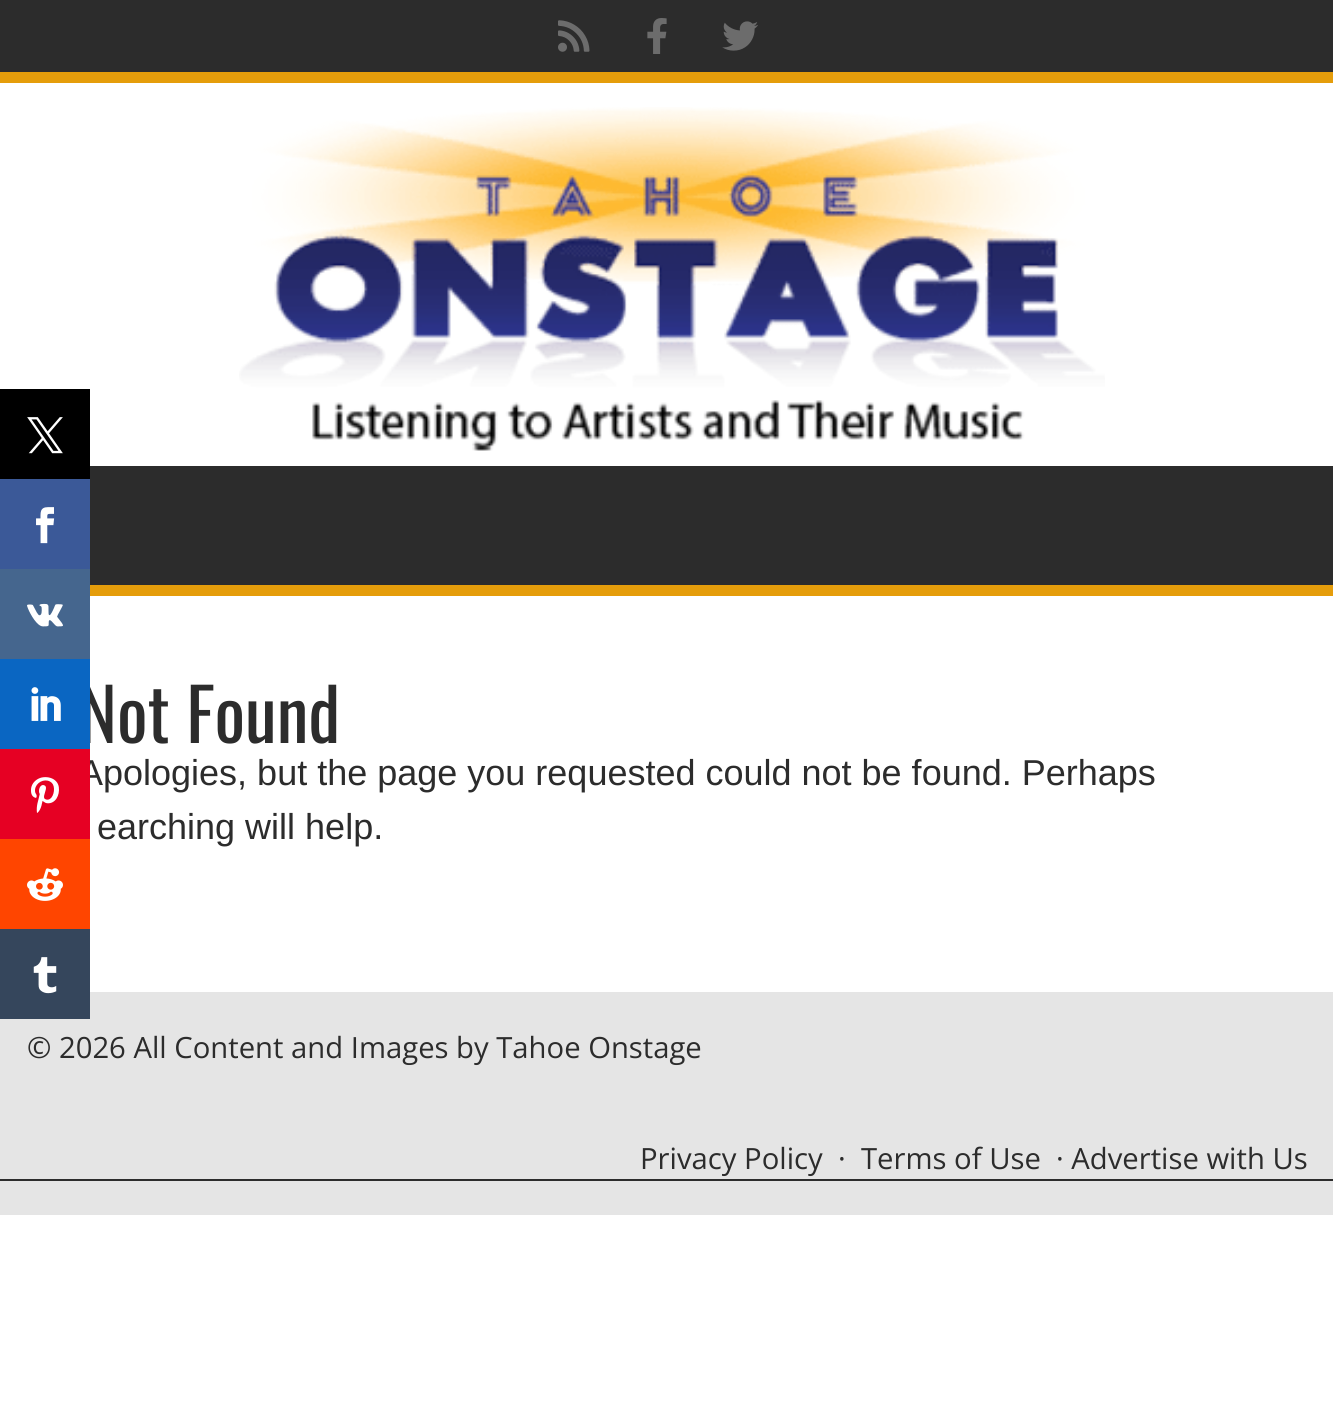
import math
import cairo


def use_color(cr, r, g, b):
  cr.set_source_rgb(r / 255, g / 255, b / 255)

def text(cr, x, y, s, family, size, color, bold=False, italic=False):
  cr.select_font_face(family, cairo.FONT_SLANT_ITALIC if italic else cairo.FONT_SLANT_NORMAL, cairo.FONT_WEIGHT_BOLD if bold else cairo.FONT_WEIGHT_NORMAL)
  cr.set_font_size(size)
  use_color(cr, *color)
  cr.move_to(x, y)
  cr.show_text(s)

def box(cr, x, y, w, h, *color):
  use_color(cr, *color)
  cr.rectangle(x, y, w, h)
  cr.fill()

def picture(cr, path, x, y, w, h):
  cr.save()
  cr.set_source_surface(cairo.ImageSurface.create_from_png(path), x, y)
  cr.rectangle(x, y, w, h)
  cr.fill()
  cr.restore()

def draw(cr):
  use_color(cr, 255, 255, 255)
  cr.paint()
  box(cr, 0, 389, 90, 90, 0, 0, 0)
  picture(cr, "img_01.png", 27, 417, 36, 37)
  box(cr, 0, 479, 90, 90, 59, 89, 152)
  picture(cr, "img_02.png", 36, 507, 19, 37)
  box(cr, 0, 569, 90, 90, 69, 102, 142)
  picture(cr, "img_03.png", 27, 603, 36, 24)
  box(cr, 0, 839, 90, 90, 255, 69, 0)
  picture(cr, "img_06.png", 27, 868, 36, 33)
  box(cr, 0, 992, 1333, 223, 229, 229, 229)
  box(cr, 0, 929, 90, 90, 53, 70, 92)
  picture(cr, "img_07.png", 33, 957, 24, 37)
  box(cr, 0, 0, 1333, 72, 44, 44, 44)
  box(cr, 0, 72, 1333, 11, 229, 157, 11)
  picture(cr, "img_08.png", 558, 20, 32, 32)
  picture(cr, "img_09.png", 647, 18, 20, 36)
  picture(cr, "img_10.png", 722, 21, 36, 30)
  picture(cr, "img_11.png", 239, 107, 866, 344)
  box(cr, 90, 466, 1243, 119, 44, 44, 44)
  box(cr, 90, 585, 1243, 11, 229, 157, 11)
  box(cr, 0, 1179, 1333, 2, 44, 44, 44)
  text(cr, 79, 743, "Not Found", "Oswald", 72, (44, 44, 44))
  box(cr, 0, 659, 90, 90, 10, 102, 194)
  picture(cr, "img_04.png", 31, 687, 30, 34)
  text(cr, 79, 785, "Apologies, but the page you requested could not be found. Perhaps", "Liberation Sans", 36, (44, 44, 44))
  box(cr, 0, 749, 90, 90, 230, 0, 35)
  picture(cr, "img_05.png", 31, 777, 28, 36)
  text(cr, 97, 839, "earching will help.", "Liberation Sans", 36, (44, 44, 44))
  text(cr, 27, 1058, "© 2026 All Content and Images by Tahoe Onstage", "Open Sans", 29.25, (44, 44, 44))
  text(cr, 640, 1169, "Privacy Policy", "Open Sans", 29.25, (44, 44, 44))
  text(cr, 838, 1169, "·", "Open Sans", 29.25, (44, 44, 44))
  text(cr, 861, 1169, "Terms of Use", "Open Sans", 29.25, (44, 44, 44))
  text(cr, 1056, 1169, "· Advertise with Us", "Open Sans", 29.25, (44, 44, 44))


surface = cairo.ImageSurface(cairo.FORMAT_RGB24, 1333, 1426)
cr = cairo.Context(surface)
options = cairo.FontOptions()
options.set_hint_metrics(cairo.HINT_METRICS_OFF)
options.set_hint_style(cairo.HINT_STYLE_NONE)
cr.set_font_options(options)
cr.set_miter_limit(4)
draw(cr)
surface.write_to_png("out.png")
